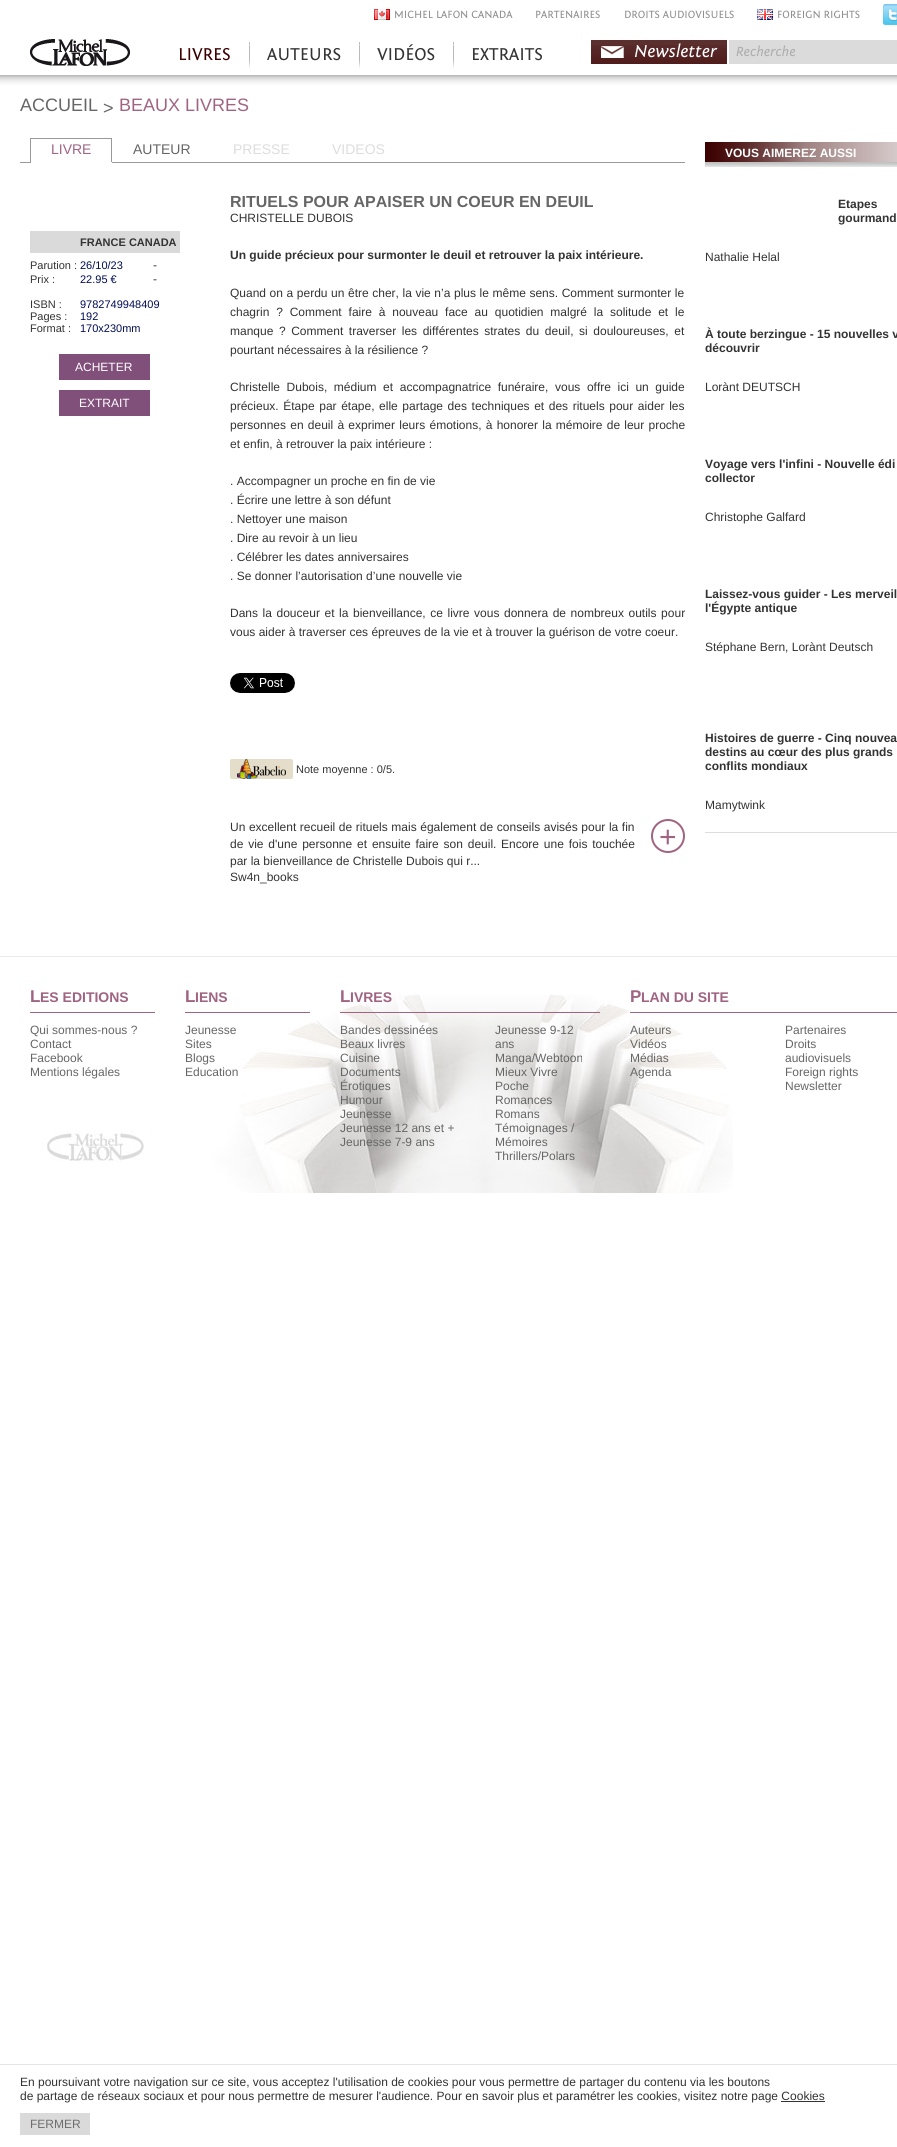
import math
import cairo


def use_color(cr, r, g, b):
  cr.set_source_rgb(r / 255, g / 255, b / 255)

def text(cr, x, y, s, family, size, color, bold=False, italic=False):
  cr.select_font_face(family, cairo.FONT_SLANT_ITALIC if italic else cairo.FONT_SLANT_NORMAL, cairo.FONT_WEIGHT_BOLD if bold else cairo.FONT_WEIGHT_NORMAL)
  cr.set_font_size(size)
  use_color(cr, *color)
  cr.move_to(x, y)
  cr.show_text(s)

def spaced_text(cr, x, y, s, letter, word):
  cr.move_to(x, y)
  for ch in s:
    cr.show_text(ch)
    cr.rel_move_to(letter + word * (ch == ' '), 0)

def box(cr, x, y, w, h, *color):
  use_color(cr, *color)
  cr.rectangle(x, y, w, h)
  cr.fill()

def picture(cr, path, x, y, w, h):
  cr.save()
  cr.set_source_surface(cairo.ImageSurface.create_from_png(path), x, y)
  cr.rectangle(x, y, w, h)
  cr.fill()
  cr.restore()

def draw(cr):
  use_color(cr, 255, 255, 255)
  cr.paint()
  picture(cr, "img_01.png", 374, 9, 16, 11)
  picture(cr, "img_02.png", 757, 9, 16, 11)
  picture(cr, "img_03.png", 883, 4, 14, 21)
  picture(cr, "img_04.png", 30, 39, 100, 27)
  picture(cr, "img_05.png", 249, 42, 1, 27)
  picture(cr, "img_05.png", 359, 42, 1, 27)
  picture(cr, "img_05.png", 453, 42, 1, 27)
  box(cr, 591, 40, 136, 5, 92, 47, 47)
  picture(cr, "img_06.png", 591, 45, 136, 19)
  box(cr, 729, 40, 168, 24, 219, 219, 220)
  picture(cr, "img_07.png", 0, 75, 897, 10)
  box(cr, 20, 162, 665, 1, 153, 153, 153)
  box(cr, 30, 138, 82, 1, 153, 153, 153)
  box(cr, 111, 138, 1, 25, 153, 153, 153)
  box(cr, 30, 162, 82, 1, 255, 255, 255)
  box(cr, 30, 138, 1, 25, 153, 153, 153)
  box(cr, 30, 231, 150, 22, 218, 218, 218)
  box(cr, 59, 354, 91, 26, 128, 79, 122)
  box(cr, 59, 390, 91, 26, 128, 79, 122)
  picture(cr, "img_08.png", 230, 673, 65, 20)
  picture(cr, "img_09.png", 230, 759, 63, 20)
  cr.arc(668, 836, 16, 0, 2 * math.pi)
  use_color(cr, 160, 100, 130)
  cr.stroke()
  box(cr, 705, 142, 192, 20, 60, 0, 0)
  picture(cr, "img_10.png", 705, 142, 192, 25)
  box(cr, 705, 832, 192, 1, 221, 221, 221)
  picture(cr, "img_11.png", 47, 994, 686, 199)
  box(cr, 0, 956, 897, 1, 233, 233, 233)
  box(cr, 30, 1012, 125, 1, 159, 100, 129)
  box(cr, 185, 1012, 125, 1, 159, 100, 129)
  box(cr, 340, 1012, 260, 1, 159, 100, 129)
  box(cr, 630, 1012, 267, 1, 159, 100, 129)
  box(cr, 0, 2064, 897, 1, 229, 229, 229)
  box(cr, 781, 2101, 44, 1, 51, 51, 51)
  box(cr, 20, 2113, 70, 22, 218, 218, 218)
  text(cr, 394, 18, "MICHEL LAFON CANADA", "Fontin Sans", 11, (143, 142, 142))
  text(cr, 535, 18, "PARTENAIRES", "Fontin Sans", 11, (143, 142, 142))
  text(cr, 624, 18, "DROITS AUDIOVISUELS", "Fontin Sans", 11, (143, 142, 142))
  text(cr, 777, 18, "FOREIGN RIGHTS", "Fontin Sans", 11, (143, 142, 142))
  text(cr, 178, 60, "LIVRES", "Fontin Sans", 18, (60, 0, 0))
  text(cr, 267, 60, "AUTEURS", "Fontin Sans", 18, (51, 51, 51))
  text(cr, 377, 60, "VIDÉOS", "Fontin Sans", 18, (51, 51, 51))
  text(cr, 471, 60, "EXTRAITS", "Fontin Sans", 18, (51, 51, 51))
  text(cr, 634, 57, "Newsletter", "Fontin Sans", 18, (255, 255, 255), italic=True)
  text(cr, 736, 56, "Recherche", "Fontin Sans", 14, (173, 173, 173), italic=True)
  text(cr, 20, 111, "ACCUEIL", "Liberation Sans", 18, (102, 102, 102))
  text(cr, 103, 114, ">", "Liberation Sans", 18, (102, 102, 102))
  text(cr, 119, 111, "BEAUX LIVRES", "Liberation Sans", 18, (160, 100, 130))
  text(cr, 51, 154, "LIVRE", "Liberation Sans", 14, (160, 100, 130))
  text(cr, 133, 154, "AUTEUR", "Liberation Sans", 14, (102, 102, 102))
  text(cr, 233, 154, "PRESSE", "Liberation Sans", 14, (221, 221, 221))
  text(cr, 332, 154, "VIDEOS", "Liberation Sans", 14, (221, 221, 221))
  text(cr, 80, 246, "FRANCE CANADA", "Liberation Sans", 11, (51, 51, 51), bold=True)
  text(cr, 30, 269, "Parution :", "Liberation Sans", 11, (51, 51, 51))
  text(cr, 80, 269, "26/10/23", "Liberation Sans", 11, (0, 12, 86))
  text(cr, 153, 269, "-", "Liberation Sans", 12, (51, 51, 51))
  text(cr, 30, 283, "Prix :", "Liberation Sans", 11, (51, 51, 51))
  text(cr, 80, 283, "22.95 €", "Liberation Sans", 11, (0, 12, 86))
  text(cr, 153, 283, "-", "Liberation Sans", 12, (51, 51, 51))
  text(cr, 30, 308, "ISBN :", "Liberation Sans", 11, (51, 51, 51))
  text(cr, 80, 308, "9782749948409", "Liberation Sans", 11, (0, 12, 86))
  text(cr, 30, 320, "Pages :", "Liberation Sans", 11, (51, 51, 51))
  text(cr, 80, 320, "192", "Liberation Sans", 11, (0, 12, 86))
  text(cr, 30, 332, "Format :", "Liberation Sans", 11, (51, 51, 51))
  text(cr, 80, 332, "170x230mm", "Liberation Sans", 11, (0, 12, 86))
  text(cr, 75, 371, "ACHETER", "Liberation Sans", 12, (255, 255, 255))
  text(cr, 79, 407, "EXTRAIT", "Liberation Sans", 12, (255, 255, 255))
  text(cr, 230, 207, "RITUELS POUR APAISER UN COEUR EN DEUIL", "Liberation Sans", 16, (102, 102, 102), bold=True)
  text(cr, 230, 222, "CHRISTELLE DUBOIS", "Liberation Sans", 12, (51, 51, 51))
  text(cr, 230, 259, "Un guide précieux pour surmonter le deuil et retrouver la paix intérieure.", "Liberation Sans", 12, (51, 51, 51), bold=True)
  cr.select_font_face("Liberation Sans")
  spaced_text(cr, 230, 297, "Quand on a perdu un être cher, la vie n’a plus le même sens. Comment surmonter le", 0, 0.25)
  spaced_text(cr, 230, 316, "chagrin ? Comment faire à nouveau face au quotidien malgré la solitude et le", 0, 3.5)
  spaced_text(cr, 230, 335, "manque ? Comment traverser les différentes strates du deuil, si douloureuses, et", 0, 2.25)
  text(cr, 230, 354, "pourtant nécessaires à la résilience ?", "Liberation Sans", 12, (51, 51, 51))
  spaced_text(cr, 230, 391, "Christelle Dubois, médium et accompagnatrice funéraire, vous offre ici un guide", 0, 3.25)
  spaced_text(cr, 230, 410, "précieux. Étape par étape, elle partage des techniques et des rituels pour aider les", 0, 1.25)
  spaced_text(cr, 230, 429, "personnes en deuil à exprimer leurs émotions, à honorer la mémoire de leur proche", 0, 0.9)
  text(cr, 230, 448, "et enfin, à retrouver la paix intérieure :", "Liberation Sans", 12, (51, 51, 51))
  text(cr, 230, 485, ". Accompagner un proche en fin de vie", "Liberation Sans", 12, (51, 51, 51))
  text(cr, 230, 504, ". Écrire une lettre à son défunt", "Liberation Sans", 12, (51, 51, 51))
  text(cr, 230, 523, ". Nettoyer une maison", "Liberation Sans", 12, (51, 51, 51))
  text(cr, 230, 542, ". Dire au revoir à un lieu", "Liberation Sans", 12, (51, 51, 51))
  text(cr, 230, 561, ". Célébrer les dates anniversaires", "Liberation Sans", 12, (51, 51, 51))
  text(cr, 230, 580, ". Se donner l’autorisation d’une nouvelle vie", "Liberation Sans", 12, (51, 51, 51))
  spaced_text(cr, 230, 617, "Dans la douceur et la bienveillance, ce livre vous donnera de nombreux outils pour", 0, 1.25)
  text(cr, 230, 636, "vous aider à traverser ces épreuves de la vie et à trouver la guérison de votre coeur.", "Liberation Sans", 12, (51, 51, 51))
  text(cr, 296, 773, "Note moyenne : 0/5.", "Liberation Sans", 11, (51, 51, 51))
  cr.set_font_size(12)
  spaced_text(cr, 230, 831, "Un excellent recueil de rituels mais également de conseils avisés pour la fin", 0, 0.25)
  text(cr, 659, 847, "+", "Liberation Sans", 30, (160, 100, 130))
  cr.set_font_size(12)
  use_color(cr, 51, 51, 51)
  spaced_text(cr, 230, 848, "de vie d'une personne et ensuite faire son deuil.", 0, 1.5)
  spaced_text(cr, 501, 848, "Encore une fois touchée", 0, 1.5)
  text(cr, 230, 865, "par la bienveillance de Christelle Dubois qui r...", "Liberation Sans", 12, (51, 51, 51))
  text(cr, 230, 881, "Sw4n_books", "Liberation Sans", 12, (51, 51, 51))
  text(cr, 725, 157, "VOUS AIMEREZ AUSSI", "Liberation Sans", 12, (255, 255, 255), bold=True)
  text(cr, 838, 208, "Etapes", "Liberation Sans", 12, (51, 51, 51), bold=True)
  text(cr, 838, 222, "gourmand", "Liberation Sans", 12, (51, 51, 51), bold=True)
  text(cr, 705, 261, "Nathalie Helal", "Liberation Sans", 12, (51, 51, 51))
  text(cr, 705, 338, "À toute berzingue - 15 nouvelles v", "Liberation Sans", 12, (51, 51, 51), bold=True)
  text(cr, 705, 352, "découvrir", "Liberation Sans", 12, (51, 51, 51), bold=True)
  text(cr, 705, 391, "Lorànt DEUTSCH", "Liberation Sans", 12, (51, 51, 51))
  text(cr, 705, 468, "Voyage vers l'infini - Nouvelle édi", "Liberation Sans", 12, (51, 51, 51), bold=True)
  text(cr, 705, 482, "collector", "Liberation Sans", 12, (51, 51, 51), bold=True)
  text(cr, 705, 521, "Christophe Galfard", "Liberation Sans", 12, (51, 51, 51))
  text(cr, 705, 598, "Laissez-vous guider - Les merveil", "Liberation Sans", 12, (51, 51, 51), bold=True)
  text(cr, 705, 612, "l'Égypte antique", "Liberation Sans", 12, (51, 51, 51), bold=True)
  text(cr, 705, 651, "Stéphane Bern, Lorànt Deutsch", "Liberation Sans", 12, (51, 51, 51))
  text(cr, 705, 742, "Histoires de guerre - Cinq nouvea", "Liberation Sans", 12, (51, 51, 51), bold=True)
  text(cr, 705, 756, "destins au cœur des plus grands", "Liberation Sans", 12, (51, 51, 51), bold=True)
  text(cr, 705, 770, "conflits mondiaux", "Liberation Sans", 12, (51, 51, 51), bold=True)
  text(cr, 705, 809, "Mamytwink", "Liberation Sans", 12, (51, 51, 51))
  text(cr, 30, 1002, "L", "Liberation Sans", 17, (160, 100, 130), bold=True)
  text(cr, 40, 1002, "ES EDITIONS", "Liberation Sans", 14, (160, 100, 130), bold=True)
  text(cr, 30, 1034, "Qui sommes-nous ?", "Liberation Sans", 12, (102, 102, 102))
  text(cr, 30, 1048, "Contact", "Liberation Sans", 12, (102, 102, 102))
  text(cr, 30, 1062, "Facebook", "Liberation Sans", 12, (102, 102, 102))
  text(cr, 30, 1076, "Mentions légales", "Liberation Sans", 12, (102, 102, 102))
  text(cr, 185, 1002, "L", "Liberation Sans", 17, (160, 100, 130), bold=True)
  text(cr, 195, 1002, "IENS", "Liberation Sans", 14, (160, 100, 130), bold=True)
  text(cr, 185, 1034, "Jeunesse", "Liberation Sans", 12, (102, 102, 102))
  text(cr, 185, 1048, "Sites", "Liberation Sans", 12, (102, 102, 102))
  text(cr, 185, 1062, "Blogs", "Liberation Sans", 12, (102, 102, 102))
  text(cr, 185, 1076, "Education", "Liberation Sans", 12, (102, 102, 102))
  text(cr, 340, 1002, "L", "Liberation Sans", 17, (160, 100, 130), bold=True)
  text(cr, 350, 1002, "IVRES", "Liberation Sans", 14, (160, 100, 130), bold=True)
  text(cr, 340, 1034, "Bandes dessinées", "Liberation Sans", 12, (102, 102, 102))
  text(cr, 340, 1048, "Beaux livres", "Liberation Sans", 12, (102, 102, 102))
  text(cr, 340, 1062, "Cuisine", "Liberation Sans", 12, (102, 102, 102))
  text(cr, 340, 1076, "Documents", "Liberation Sans", 12, (102, 102, 102))
  text(cr, 340, 1090, "Érotiques", "Liberation Sans", 12, (102, 102, 102))
  text(cr, 340, 1104, "Humour", "Liberation Sans", 12, (102, 102, 102))
  text(cr, 340, 1118, "Jeunesse", "Liberation Sans", 12, (102, 102, 102))
  text(cr, 340, 1132, "Jeunesse 12 ans et +", "Liberation Sans", 12, (102, 102, 102))
  text(cr, 340, 1146, "Jeunesse 7-9 ans", "Liberation Sans", 12, (102, 102, 102))
  text(cr, 495, 1034, "Jeunesse 9-12", "Liberation Sans", 12, (102, 102, 102))
  text(cr, 495, 1048, "ans", "Liberation Sans", 12, (102, 102, 102))
  text(cr, 495, 1062, "Manga/Webtoon", "Liberation Sans", 12, (102, 102, 102))
  text(cr, 495, 1076, "Mieux Vivre", "Liberation Sans", 12, (102, 102, 102))
  text(cr, 495, 1090, "Poche", "Liberation Sans", 12, (102, 102, 102))
  text(cr, 495, 1104, "Romances", "Liberation Sans", 12, (102, 102, 102))
  text(cr, 495, 1118, "Romans", "Liberation Sans", 12, (102, 102, 102))
  text(cr, 495, 1132, "Témoignages /", "Liberation Sans", 12, (102, 102, 102))
  text(cr, 495, 1146, "Mémoires", "Liberation Sans", 12, (102, 102, 102))
  text(cr, 495, 1160, "Thrillers/Polars", "Liberation Sans", 12, (102, 102, 102))
  text(cr, 630, 1002, "P", "Liberation Sans", 17, (160, 100, 130), bold=True)
  text(cr, 641, 1002, "LAN DU SITE", "Liberation Sans", 14, (160, 100, 130), bold=True)
  text(cr, 630, 1034, "Auteurs", "Liberation Sans", 12, (102, 102, 102))
  text(cr, 630, 1048, "Vidéos", "Liberation Sans", 12, (102, 102, 102))
  text(cr, 630, 1062, "Médias", "Liberation Sans", 12, (102, 102, 102))
  text(cr, 630, 1076, "Agenda", "Liberation Sans", 12, (102, 102, 102))
  text(cr, 785, 1034, "Partenaires", "Liberation Sans", 12, (102, 102, 102))
  text(cr, 785, 1048, "Droits", "Liberation Sans", 12, (102, 102, 102))
  text(cr, 785, 1062, "audiovisuels", "Liberation Sans", 12, (102, 102, 102))
  text(cr, 785, 1076, "Foreign rights", "Liberation Sans", 12, (102, 102, 102))
  text(cr, 785, 1090, "Newsletter", "Liberation Sans", 12, (102, 102, 102))
  text(cr, 20, 2086, "En poursuivant votre navigation sur ce site, vous acceptez l'utilisation de cookies pour vous permettre de partager du contenu via les boutons", "Liberation Sans", 12, (51, 51, 51))
  text(cr, 20, 2100, "de partage de réseaux sociaux et pour nous permettre de mesurer l'audience. Pour en savoir plus et paramétrer les cookies, visitez notre page Cookies", "Liberation Sans", 12, (51, 51, 51))
  text(cr, 30, 2128, "FERMER", "Liberation Sans", 12, (111, 109, 110))


surface = cairo.ImageSurface(cairo.FORMAT_RGB24, 897, 2147)
cr = cairo.Context(surface)
options = cairo.FontOptions()
options.set_hint_metrics(cairo.HINT_METRICS_OFF)
options.set_hint_style(cairo.HINT_STYLE_NONE)
cr.set_font_options(options)
cr.set_miter_limit(4)
draw(cr)
surface.write_to_png("out.png")
